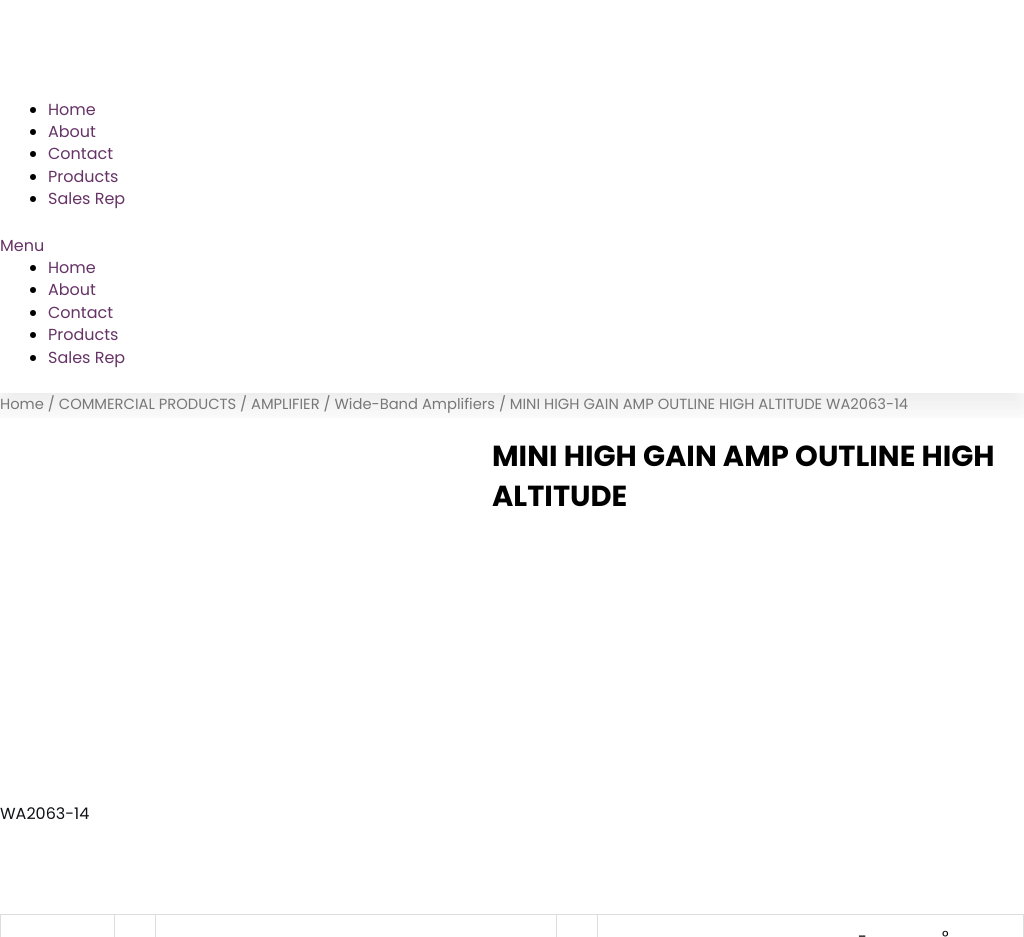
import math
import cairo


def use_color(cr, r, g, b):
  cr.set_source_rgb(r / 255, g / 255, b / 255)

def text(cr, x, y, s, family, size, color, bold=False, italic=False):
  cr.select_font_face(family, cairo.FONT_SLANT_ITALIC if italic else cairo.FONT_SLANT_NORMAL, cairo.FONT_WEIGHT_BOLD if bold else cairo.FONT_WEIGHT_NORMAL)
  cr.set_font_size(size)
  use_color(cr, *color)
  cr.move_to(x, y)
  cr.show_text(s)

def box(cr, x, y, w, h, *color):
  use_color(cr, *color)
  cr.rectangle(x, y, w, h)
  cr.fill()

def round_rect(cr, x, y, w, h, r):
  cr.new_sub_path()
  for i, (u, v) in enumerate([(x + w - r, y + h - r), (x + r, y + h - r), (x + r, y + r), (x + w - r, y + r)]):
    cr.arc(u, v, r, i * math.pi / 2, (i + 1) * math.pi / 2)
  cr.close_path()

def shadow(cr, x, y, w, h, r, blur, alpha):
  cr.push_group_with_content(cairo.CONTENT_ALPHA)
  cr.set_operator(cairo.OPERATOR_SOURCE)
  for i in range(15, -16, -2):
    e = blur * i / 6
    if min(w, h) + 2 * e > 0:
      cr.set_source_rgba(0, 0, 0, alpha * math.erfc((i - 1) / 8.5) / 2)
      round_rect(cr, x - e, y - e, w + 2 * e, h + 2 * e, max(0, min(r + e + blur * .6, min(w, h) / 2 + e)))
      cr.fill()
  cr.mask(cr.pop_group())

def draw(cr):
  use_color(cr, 255, 255, 255)
  cr.paint()
  cr.save()
  cr.rectangle(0, 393, 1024, 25)
  cr.clip()
  use_color(cr, 0, 0, 0)
  shadow(cr, 0, -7, 1024, 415, 0, 15, 0.08)
  cr.restore()
  use_color(cr, 0, 0, 0)
  cr.arc(33, 110, 3, 0, 2 * math.pi)
  cr.fill()
  cr.arc(33, 132, 3, 0, 2 * math.pi)
  cr.fill()
  cr.arc(33, 154, 3, 0, 2 * math.pi)
  cr.fill()
  cr.arc(33, 177, 3, 0, 2 * math.pi)
  cr.fill()
  cr.arc(33, 199, 3, 0, 2 * math.pi)
  cr.fill()
  cr.arc(33, 268, 3, 0, 2 * math.pi)
  cr.fill()
  cr.arc(33, 290, 3, 0, 2 * math.pi)
  cr.fill()
  cr.arc(33, 313, 3, 0, 2 * math.pi)
  cr.fill()
  cr.arc(33, 335, 3, 0, 2 * math.pi)
  cr.fill()
  cr.arc(33, 358, 3, 0, 2 * math.pi)
  cr.fill()
  box(cr, 0, 914, 1024, 1, 221, 221, 221)
  box(cr, 0, 914, 1, 23, 221, 221, 221)
  box(cr, 114, 915, 1, 22, 221, 221, 221)
  box(cr, 155, 915, 1, 22, 221, 221, 221)
  box(cr, 556, 915, 1, 22, 221, 221, 221)
  box(cr, 597, 915, 1, 22, 221, 221, 221)
  box(cr, 1023, 915, 1, 22, 221, 221, 221)
  text(cr, 48, 115, "Home", "Poppins", 16, (102, 51, 102))
  text(cr, 48, 137, "About", "Poppins", 16, (102, 51, 102))
  text(cr, 48, 159, "Contact", "Poppins", 16, (102, 51, 102))
  text(cr, 48, 182, "Products", "Poppins", 16, (102, 51, 102))
  text(cr, 48, 204, "Sales Rep", "Poppins", 16, (102, 51, 102))
  text(cr, 0, 251, "Menu", "Poppins", 16, (102, 51, 102))
  text(cr, 48, 273, "Home", "Poppins", 16, (102, 51, 102))
  text(cr, 48, 295, "About", "Poppins", 16, (102, 51, 102))
  text(cr, 48, 318, "Contact", "Poppins", 16, (102, 51, 102))
  text(cr, 48, 340, "Products", "Poppins", 16, (102, 51, 102))
  text(cr, 48, 363, "Sales Rep", "Poppins", 16, (102, 51, 102))
  text(cr, 0, 409, "Home / COMMERCIAL PRODUCTS / AMPLIFIER / Wide-Band Amplifiers / MINI HIGH GAIN AMP OUTLINE HIGH ALTITUDE WA2063-14", "Poppins", 14.72, (119, 119, 119))
  text(cr, 492, 466, "MINI HIGH GAIN AMP OUTLINE HIGH", "Poppins", 29, (0, 0, 0), bold=True)
  text(cr, 492, 506, "ALTITUDE", "Poppins", 29, (0, 0, 0), bold=True)
  text(cr, 0, 819, "WA2063-14", "Poppins", 16, (16, 18, 24))
  text(cr, 858, 942, "-", "Poppins", 16, (0, 0, 0))
  text(cr, 942, 942, "°", "Poppins", 16, (0, 0, 0))


surface = cairo.ImageSurface(cairo.FORMAT_RGB24, 1024, 937)
cr = cairo.Context(surface)
options = cairo.FontOptions()
options.set_hint_metrics(cairo.HINT_METRICS_OFF)
options.set_hint_style(cairo.HINT_STYLE_NONE)
cr.set_font_options(options)
cr.set_miter_limit(4)
draw(cr)
surface.write_to_png("out.png")
